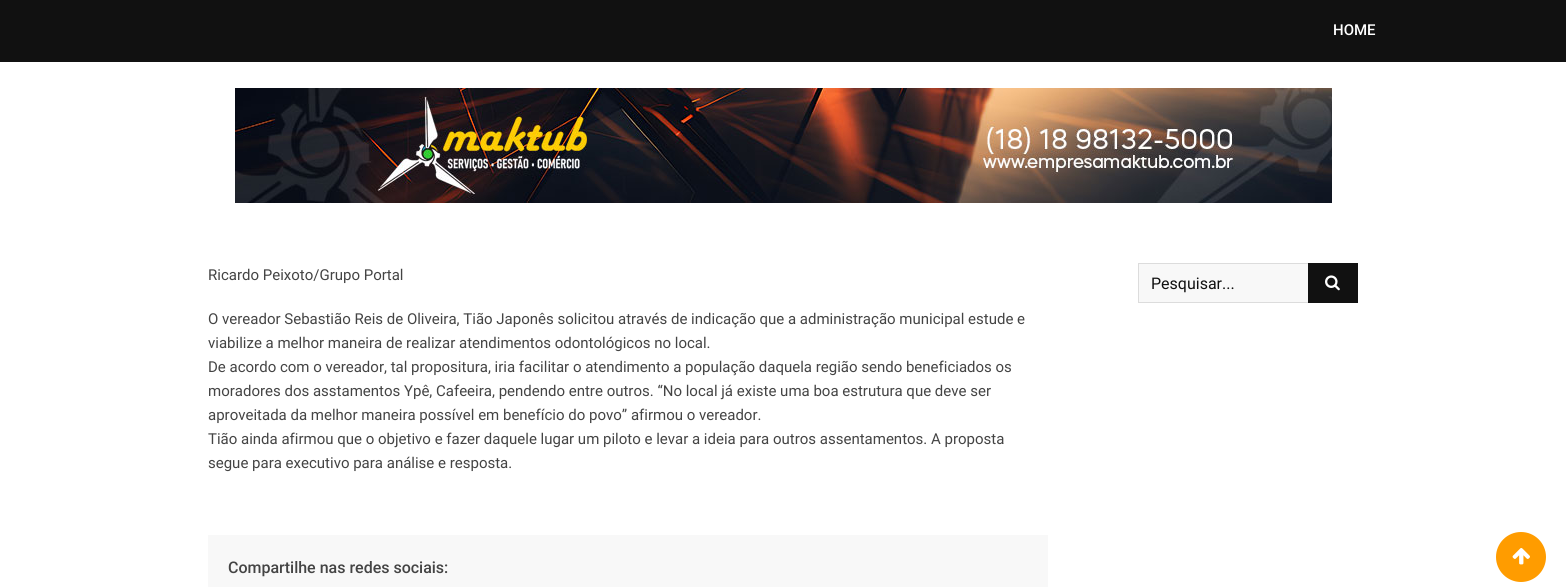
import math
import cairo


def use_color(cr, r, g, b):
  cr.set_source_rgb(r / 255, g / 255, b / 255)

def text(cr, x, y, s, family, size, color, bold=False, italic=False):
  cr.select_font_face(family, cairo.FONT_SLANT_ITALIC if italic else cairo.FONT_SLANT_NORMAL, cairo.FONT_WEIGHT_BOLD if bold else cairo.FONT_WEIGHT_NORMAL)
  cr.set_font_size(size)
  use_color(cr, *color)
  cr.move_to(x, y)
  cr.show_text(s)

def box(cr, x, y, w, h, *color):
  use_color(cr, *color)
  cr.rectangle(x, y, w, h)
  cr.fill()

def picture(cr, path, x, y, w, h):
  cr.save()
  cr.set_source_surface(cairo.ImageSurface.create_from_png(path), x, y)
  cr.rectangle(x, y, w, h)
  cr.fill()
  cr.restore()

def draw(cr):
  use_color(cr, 255, 255, 255)
  cr.paint()
  box(cr, 0, 0, 1566, 62, 17, 17, 17)
  picture(cr, "img_01.png", 235, 88, 1097, 115)
  box(cr, 208, 535, 840, 52, 248, 248, 248)
  box(cr, 1139, 264, 169, 38, 248, 248, 248)
  cr.rectangle(1138.5, 263.5, 219, 39)
  use_color(cr, 220, 220, 220)
  cr.set_line_width(1)
  cr.stroke()
  box(cr, 1308, 263, 50, 40, 17, 17, 17)
  picture(cr, "img_02.png", 1325, 275, 15, 16)
  use_color(cr, 255, 156, 0)
  cr.arc(1521, 557, 24, 0, 2 * math.pi)
  cr.fill_preserve()
  cr.set_line_width(2)
  cr.stroke()
  picture(cr, "img_03.png", 1512, 548, 18, 17)
  text(cr, 1333, 35, "HOME", "Roboto Medium", 15, (255, 255, 255))
  text(cr, 208, 280, "Ricardo Peixoto/Grupo Portal", "Roboto", 15, (68, 68, 68))
  text(cr, 208, 324, "O vereador Sebastião Reis de Oliveira, Tião Japonês solicitou através de indicação que a administração municipal estude e", "Roboto", 15, (68, 68, 68))
  text(cr, 208, 348, "viabilize a melhor maneira de realizar atendimentos odontológicos no local.", "Roboto", 15, (68, 68, 68))
  text(cr, 208, 372, "De acordo com o vereador, tal propositura, iria facilitar o atendimento a população daquela região sendo beneficiados os", "Roboto", 15, (68, 68, 68))
  text(cr, 208, 396, "moradores dos asstamentos Ypê, Cafeeira, pendendo entre outros. “No local já existe uma boa estrutura que deve ser", "Roboto", 15, (68, 68, 68))
  text(cr, 208, 420, "aproveitada da melhor maneira possível em benefício do povo” afirmou o vereador.", "Roboto", 15, (68, 68, 68))
  text(cr, 208, 444, "Tião ainda afirmou que o objetivo e fazer daquele lugar um piloto e levar a ideia para outros assentamentos. A proposta", "Roboto", 15, (68, 68, 68))
  text(cr, 208, 468, "segue para executivo para análise e resposta.", "Roboto", 15, (68, 68, 68))
  text(cr, 228, 573, "Compartilhe nas redes sociais:", "Roboto Medium", 16, (68, 68, 68))
  text(cr, 1151, 289, "Pesquisar...", "Roboto", 16, (17, 17, 17))


surface = cairo.ImageSurface(cairo.FORMAT_RGB24, 1566, 587)
cr = cairo.Context(surface)
options = cairo.FontOptions()
options.set_hint_metrics(cairo.HINT_METRICS_OFF)
options.set_hint_style(cairo.HINT_STYLE_NONE)
cr.set_font_options(options)
cr.set_miter_limit(4)
draw(cr)
surface.write_to_png("out.png")
